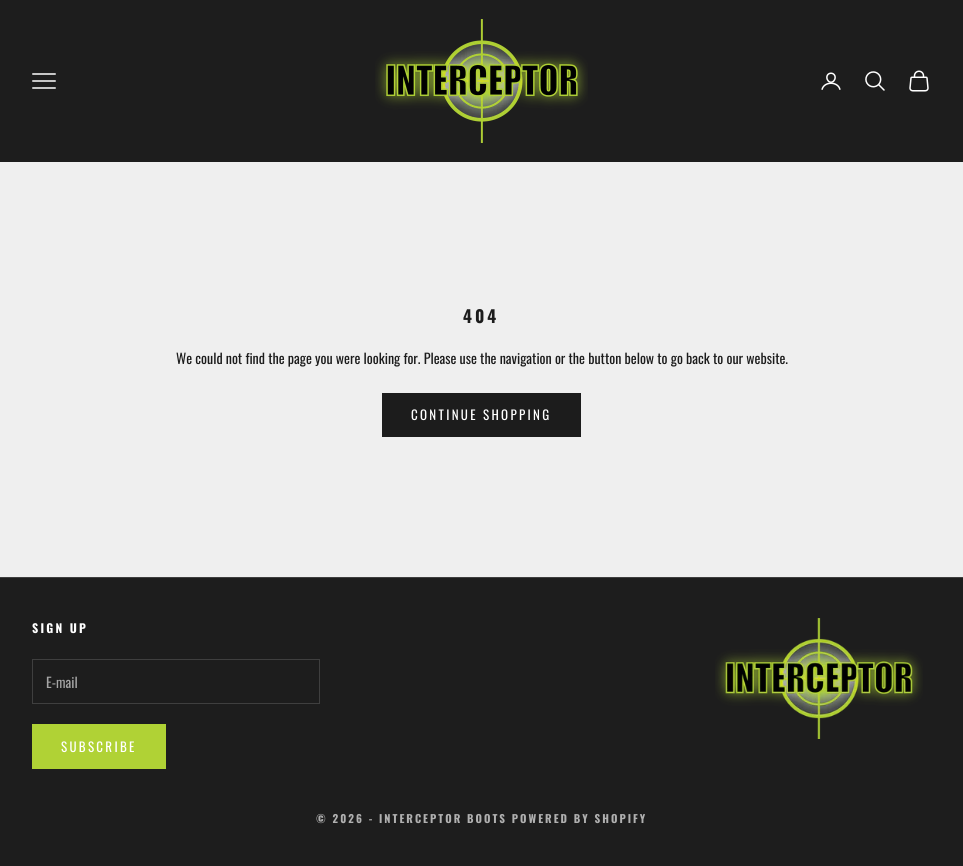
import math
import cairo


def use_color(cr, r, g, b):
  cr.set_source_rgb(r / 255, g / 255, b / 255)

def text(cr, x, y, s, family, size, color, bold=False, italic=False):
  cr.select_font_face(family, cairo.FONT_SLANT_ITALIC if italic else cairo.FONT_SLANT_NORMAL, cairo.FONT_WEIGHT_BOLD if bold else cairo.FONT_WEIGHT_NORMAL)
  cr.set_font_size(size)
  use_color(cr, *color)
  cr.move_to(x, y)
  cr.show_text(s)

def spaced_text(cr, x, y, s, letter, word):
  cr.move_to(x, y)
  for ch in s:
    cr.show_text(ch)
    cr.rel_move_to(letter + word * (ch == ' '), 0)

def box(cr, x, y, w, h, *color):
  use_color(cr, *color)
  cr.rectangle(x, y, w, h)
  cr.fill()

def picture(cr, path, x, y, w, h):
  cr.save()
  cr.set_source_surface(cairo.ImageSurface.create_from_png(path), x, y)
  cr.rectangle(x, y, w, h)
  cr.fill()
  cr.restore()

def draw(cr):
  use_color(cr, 239, 239, 239)
  cr.paint()
  box(cr, 0, 0, 963, 162, 29, 29, 29)
  cr.new_path()
  cr.move_to(33, 88)
  cr.line_to(55, 88)
  cr.move_to(33, 81)
  cr.line_to(55, 81)
  cr.move_to(33, 74)
  cr.line_to(55, 74)
  use_color(cr, 255, 255, 255)
  cr.set_line_width(1.5)
  cr.set_line_cap(cairo.LINE_CAP_SQUARE)
  cr.stroke()
  picture(cr, "img_01.png", 375, 19, 213, 124)
  picture(cr, "img_02.png", 821, 72, 20, 18)
  picture(cr, "img_03.png", 865, 71, 20, 20)
  picture(cr, "img_04.png", 909, 70, 20, 22)
  use_color(cr, 28, 28, 28)
  cr.rectangle(382.5, 393.5, 198, 43)
  cr.fill_preserve()
  cr.set_line_width(1)
  cr.set_line_cap(cairo.LINE_CAP_BUTT)
  cr.stroke()
  box(cr, 0, 578, 963, 288, 29, 29, 29)
  box(cr, 0, 577, 963, 1, 63, 63, 63)
  cr.rectangle(32.5, 659.5, 287, 44)
  cr.stroke()
  use_color(cr, 176, 210, 53)
  cr.rectangle(32.5, 724.5, 133, 44)
  cr.fill_preserve()
  cr.stroke()
  picture(cr, "img_05.png", 715, 618, 208, 121)
  cr.select_font_face("Oswald", cairo.FONT_SLANT_NORMAL, cairo.FONT_WEIGHT_BOLD)
  cr.set_font_size(17)
  use_color(cr, 28, 28, 28)
  spaced_text(cr, 463, 323, "404", 3, 0)
  text(cr, 176, 364, "We could not find the page you were looking for. Please use the navigation or the button below to go back to our website.", "Oswald", 14, (28, 28, 28))
  cr.set_font_size(13)
  use_color(cr, 255, 255, 255)
  spaced_text(cr, 411, 420, "CONTINUE SHOPPING", 2.3, 0)
  cr.select_font_face("Oswald", cairo.FONT_SLANT_NORMAL, cairo.FONT_WEIGHT_BOLD)
  cr.set_font_size(12)
  spaced_text(cr, 32, 633, "SIGN UP", 2.25, 0)
  text(cr, 46, 688, "E-mail", "Oswald", 14, (165, 165, 165))
  cr.set_font_size(13)
  use_color(cr, 255, 255, 255)
  spaced_text(cr, 61, 752, "SUBSCRIBE", 2.3, 0)
  cr.select_font_face("Oswald", cairo.FONT_SLANT_NORMAL, cairo.FONT_WEIGHT_BOLD)
  cr.set_font_size(11)
  use_color(cr, 176, 176, 176)
  spaced_text(cr, 316, 823, "© 2026 - INTERCEPTOR BOOTS POWERED BY SHOPIFY", 2, 0)


surface = cairo.ImageSurface(cairo.FORMAT_RGB24, 963, 866)
cr = cairo.Context(surface)
options = cairo.FontOptions()
options.set_hint_metrics(cairo.HINT_METRICS_OFF)
options.set_hint_style(cairo.HINT_STYLE_NONE)
cr.set_font_options(options)
cr.set_miter_limit(4)
draw(cr)
surface.write_to_png("out.png")
